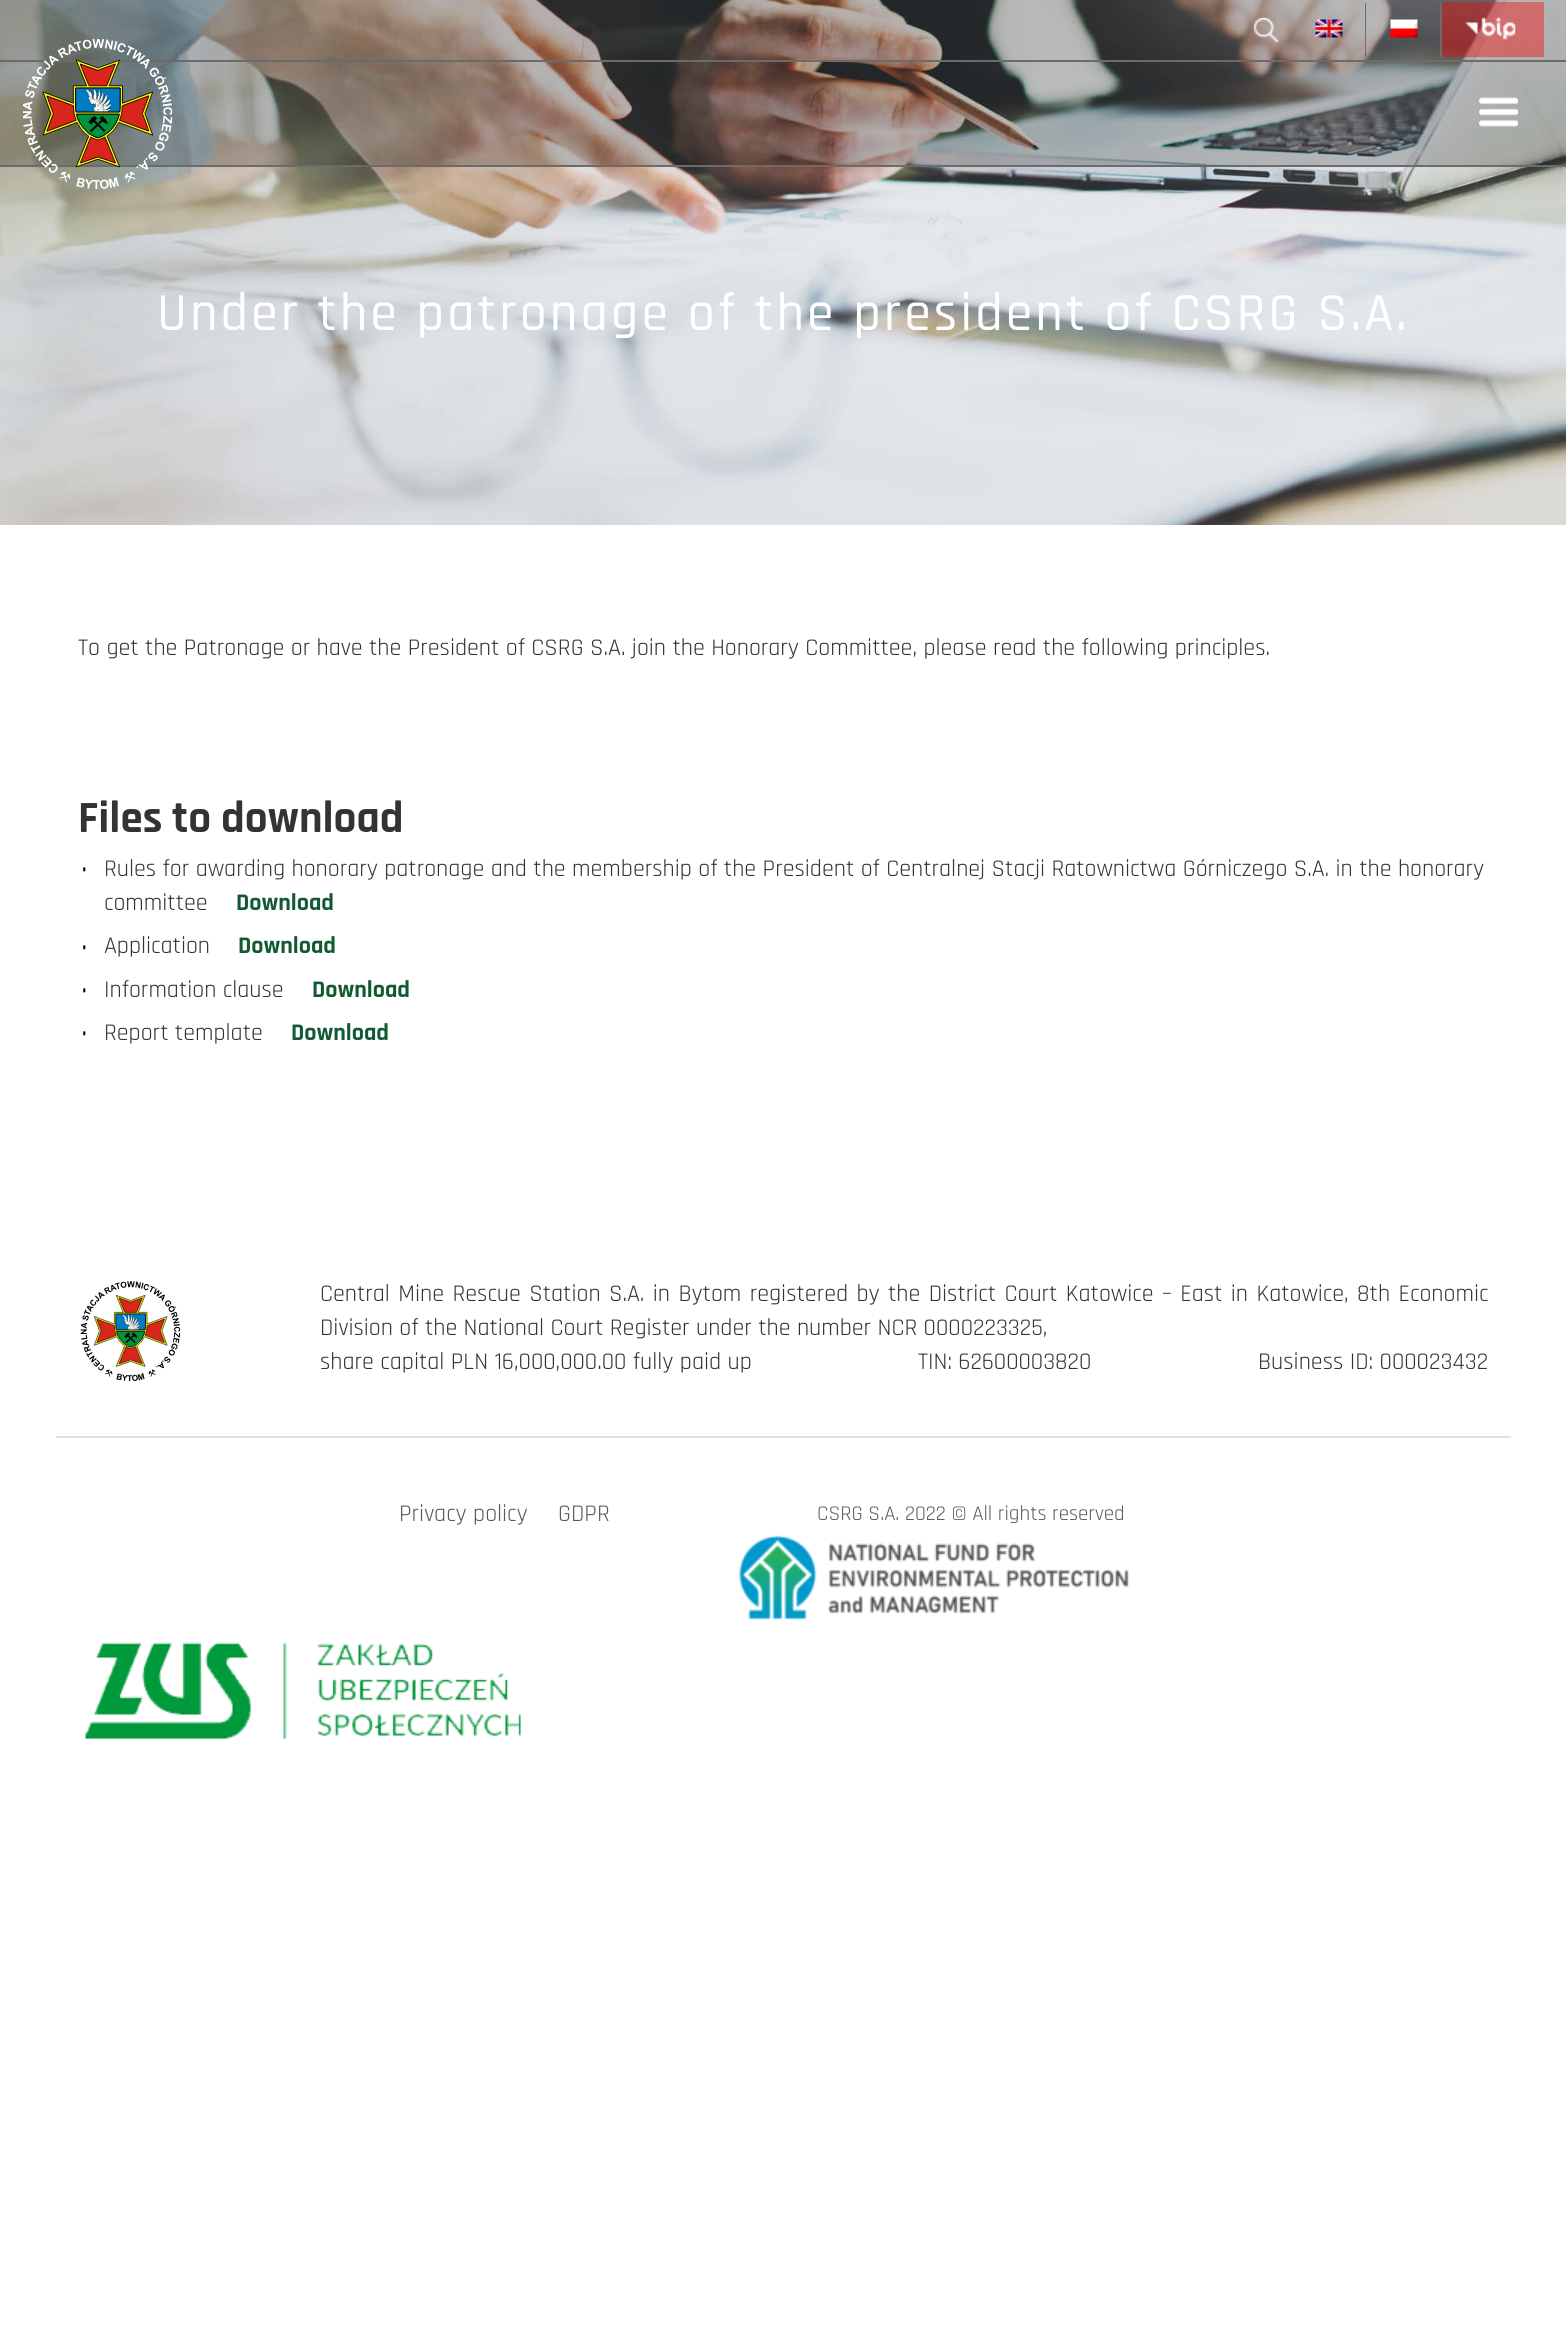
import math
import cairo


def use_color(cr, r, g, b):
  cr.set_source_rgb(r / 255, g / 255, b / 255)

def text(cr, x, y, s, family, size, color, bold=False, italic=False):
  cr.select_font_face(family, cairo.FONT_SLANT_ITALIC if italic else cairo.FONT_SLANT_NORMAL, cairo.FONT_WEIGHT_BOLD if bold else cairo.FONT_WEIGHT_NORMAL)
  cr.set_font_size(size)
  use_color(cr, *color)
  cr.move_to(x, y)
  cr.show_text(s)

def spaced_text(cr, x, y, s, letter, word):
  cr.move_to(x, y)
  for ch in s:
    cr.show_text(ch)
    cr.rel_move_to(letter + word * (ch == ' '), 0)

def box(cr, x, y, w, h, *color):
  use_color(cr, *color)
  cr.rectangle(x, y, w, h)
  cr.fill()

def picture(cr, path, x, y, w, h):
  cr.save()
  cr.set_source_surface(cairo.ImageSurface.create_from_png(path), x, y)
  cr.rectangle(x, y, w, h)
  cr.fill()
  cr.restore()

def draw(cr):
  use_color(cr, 255, 255, 255)
  cr.paint()
  picture(cr, "img_07.png", 0, 0, 1566, 525)
  cr.set_source_rgba(0, 0, 0, 0.2)
  cr.rectangle(0, 0, 1566, 60)
  cr.fill()
  box(cr, 0, 60, 1566, 2, 108, 107, 106)
  picture(cr, "img_01.png", 1253, 18, 26, 24)
  cr.new_path()
  cr.move_to(1366, 2)
  cr.line_to(1366, 57)
  cr.line_to(1365, 57)
  cr.line_to(1365, 4)
  cr.close_path()
  cr.fill()
  picture(cr, "img_02.png", 1315, 19, 28, 19)
  cr.new_path()
  cr.move_to(1442, 2)
  cr.line_to(1442, 57)
  cr.line_to(1440, 57)
  cr.line_to(1440, 4)
  cr.close_path()
  cr.fill()
  picture(cr, "img_03.png", 1390, 19, 28, 19)
  cr.set_source_rgba(0.996, 0, 0.008, 0.4)
  cr.rectangle(1442, 2, 102, 55)
  cr.fill()
  picture(cr, "img_04.png", 1465, 17, 51, 23)
  cr.set_source_rgba(0, 0, 0, 0.2)
  cr.rectangle(0, 62, 1566, 103)
  cr.fill()
  box(cr, 0, 165, 1566, 2, 108, 107, 106)
  picture(cr, "img_05.png", 23, 39, 150, 150)
  picture(cr, "img_06.png", 1479, 97, 39, 30)
  picture(cr, "img_08.png", 80, 1281, 101, 100)
  box(cr, 56, 1436, 1455, 2, 224, 224, 224)
  picture(cr, "img_09.png", 739, 1535, 390, 85)
  picture(cr, "img_10.png", 85, 1642, 436, 98)
  cr.select_font_face("Rajdhani Medium")
  cr.set_font_size(54)
  use_color(cr, 255, 255, 255)
  spaced_text(cr, 157, 330, "Under the patronage of the president of CSRG S.A.", 3, 0)
  text(cr, 78, 655, "To get the Patronage or have the President of CSRG S.A. join the Honorary Committee, please read the following principles.", "Rajdhani", 24, (51, 51, 51))
  text(cr, 78, 832, "Files to download", "Rajdhani", 45, (51, 51, 51), bold=True)
  text(cr, 81, 877, "•", "Rajdhani", 24, (0, 0, 0))
  text(cr, 104, 876, "Rules for awarding honorary patronage and the membership of the President of Centralnej Stacji Ratownictwa Górniczego S.A. in the honorary", "Rajdhani", 24, (51, 51, 51))
  text(cr, 104, 910, "committee", "Rajdhani", 24, (51, 51, 51))
  text(cr, 236, 910, "Download", "Rajdhani", 24, (18, 90, 52), bold=True)
  text(cr, 81, 955, "•", "Rajdhani", 24, (0, 0, 0))
  text(cr, 104, 953, "Application", "Rajdhani", 24, (51, 51, 51))
  text(cr, 238, 953, "Download", "Rajdhani", 24, (18, 90, 52), bold=True)
  text(cr, 81, 998, "•", "Rajdhani", 24, (0, 0, 0))
  text(cr, 104, 997, "Information clause", "Rajdhani", 24, (51, 51, 51))
  text(cr, 312, 997, "Download", "Rajdhani", 24, (18, 90, 52), bold=True)
  text(cr, 81, 1041, "•", "Rajdhani", 24, (0, 0, 0))
  text(cr, 104, 1040, "Report template", "Rajdhani", 24, (51, 51, 51))
  text(cr, 291, 1040, "Download", "Rajdhani", 24, (18, 90, 52), bold=True)
  cr.select_font_face("Rajdhani")
  use_color(cr, 51, 51, 51)
  spaced_text(cr, 320, 1301, "Central Mine Rescue Station S.A. in Bytom registered by the District Court Katowice – East in Katowice, 8th Economic", 0, 2)
  text(cr, 320, 1335, "Division of the National Court Register under the number NCR 0000223325,", "Rajdhani", 24, (51, 51, 51))
  text(cr, 320, 1369, "share capital PLN 16,000,000.00 fully paid up", "Rajdhani", 24, (51, 51, 51))
  text(cr, 918, 1369, "TIN: 62600003820", "Rajdhani", 24, (51, 51, 51))
  text(cr, 1258, 1369, "Business ID: 000023432", "Rajdhani", 24, (51, 51, 51))
  text(cr, 399, 1521, "Privacy policy", "Rajdhani", 24, (88, 89, 89))
  text(cr, 558, 1521, "GDPR", "Rajdhani", 24, (88, 89, 89))
  text(cr, 817, 1520, "CSRG S.A. 2022 © All rights reserved", "Rajdhani", 21, (88, 89, 89))


surface = cairo.ImageSurface(cairo.FORMAT_RGB24, 1566, 2328)
cr = cairo.Context(surface)
options = cairo.FontOptions()
options.set_hint_metrics(cairo.HINT_METRICS_OFF)
options.set_hint_style(cairo.HINT_STYLE_NONE)
cr.set_font_options(options)
cr.set_miter_limit(4)
draw(cr)
surface.write_to_png("out.png")
